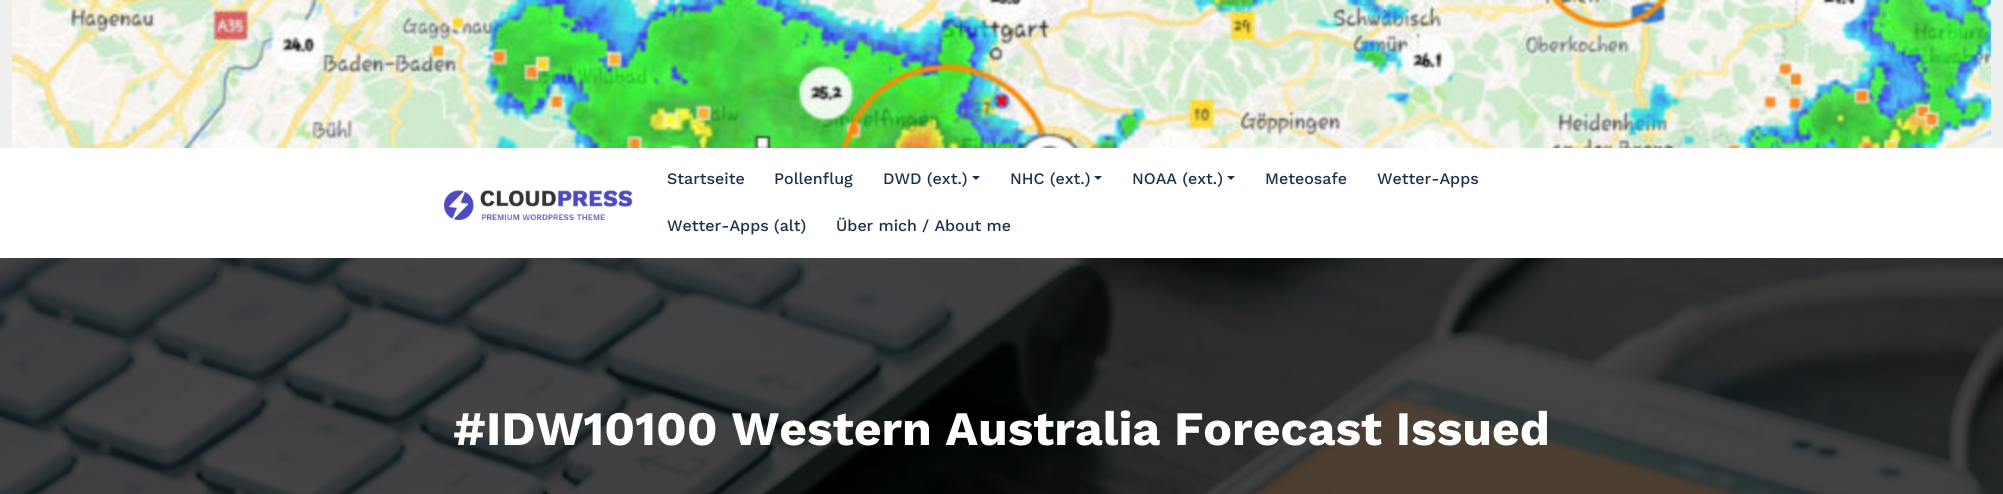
import math
import cairo


def use_color(cr, r, g, b):
  cr.set_source_rgb(r / 255, g / 255, b / 255)

def text(cr, x, y, s, family, size, color, bold=False, italic=False):
  cr.select_font_face(family, cairo.FONT_SLANT_ITALIC if italic else cairo.FONT_SLANT_NORMAL, cairo.FONT_WEIGHT_BOLD if bold else cairo.FONT_WEIGHT_NORMAL)
  cr.set_font_size(size)
  use_color(cr, *color)
  cr.move_to(x, y)
  cr.show_text(s)

def box(cr, x, y, w, h, *color):
  use_color(cr, *color)
  cr.rectangle(x, y, w, h)
  cr.fill()

def picture(cr, path, x, y, w, h):
  cr.save()
  cr.set_source_surface(cairo.ImageSurface.create_from_png(path), x, y)
  cr.rectangle(x, y, w, h)
  cr.fill()
  cr.restore()

def draw(cr):
  use_color(cr, 239, 239, 239)
  cr.paint()
  picture(cr, "img_01.png", 12, 0, 1979, 148)
  box(cr, 0, 148, 2003, 110, 255, 255, 255)
  picture(cr, "img_02.png", 444, 190, 189, 30)
  use_color(cr, 28, 49, 76)
  cr.new_path()
  cr.move_to(972, 176)
  cr.line_to(980, 176)
  cr.line_to(976, 180)
  cr.close_path()
  cr.fill()
  cr.new_path()
  cr.move_to(1094, 176)
  cr.line_to(1102, 176)
  cr.line_to(1098, 180)
  cr.close_path()
  cr.fill()
  cr.new_path()
  cr.move_to(1227, 176)
  cr.line_to(1235, 176)
  cr.line_to(1231, 180)
  cr.close_path()
  cr.fill()
  picture(cr, "img_03.png", 0, 258, 2003, 236)
  text(cr, 667, 184, "Startseite", "Work Sans Medium", 16, (28, 49, 76))
  text(cr, 774, 184, "Pollenflug", "Work Sans Medium", 16, (28, 49, 76))
  text(cr, 883, 184, "DWD (ext.)", "Work Sans Medium", 16, (28, 49, 76))
  text(cr, 1010, 184, "NHC (ext.)", "Work Sans Medium", 16, (28, 49, 76))
  text(cr, 1132, 184, "NOAA (ext.)", "Work Sans Medium", 16, (28, 49, 76))
  text(cr, 1265, 184, "Meteosafe", "Work Sans Medium", 16, (28, 49, 76))
  text(cr, 1377, 184, "Wetter-Apps", "Work Sans Medium", 16, (28, 49, 76))
  text(cr, 667, 231, "Wetter-Apps (alt)", "Work Sans Medium", 16, (28, 49, 76))
  text(cr, 836, 231, "Über mich / About me", "Work Sans Medium", 16, (28, 49, 76))
  text(cr, 453, 445, "#IDW10100 Western Australia Forecast Issued", "Work Sans", 48, (255, 255, 255), bold=True)


surface = cairo.ImageSurface(cairo.FORMAT_RGB24, 2003, 494)
cr = cairo.Context(surface)
options = cairo.FontOptions()
options.set_hint_metrics(cairo.HINT_METRICS_OFF)
options.set_hint_style(cairo.HINT_STYLE_NONE)
cr.set_font_options(options)
cr.set_miter_limit(4)
draw(cr)
surface.write_to_png("out.png")
